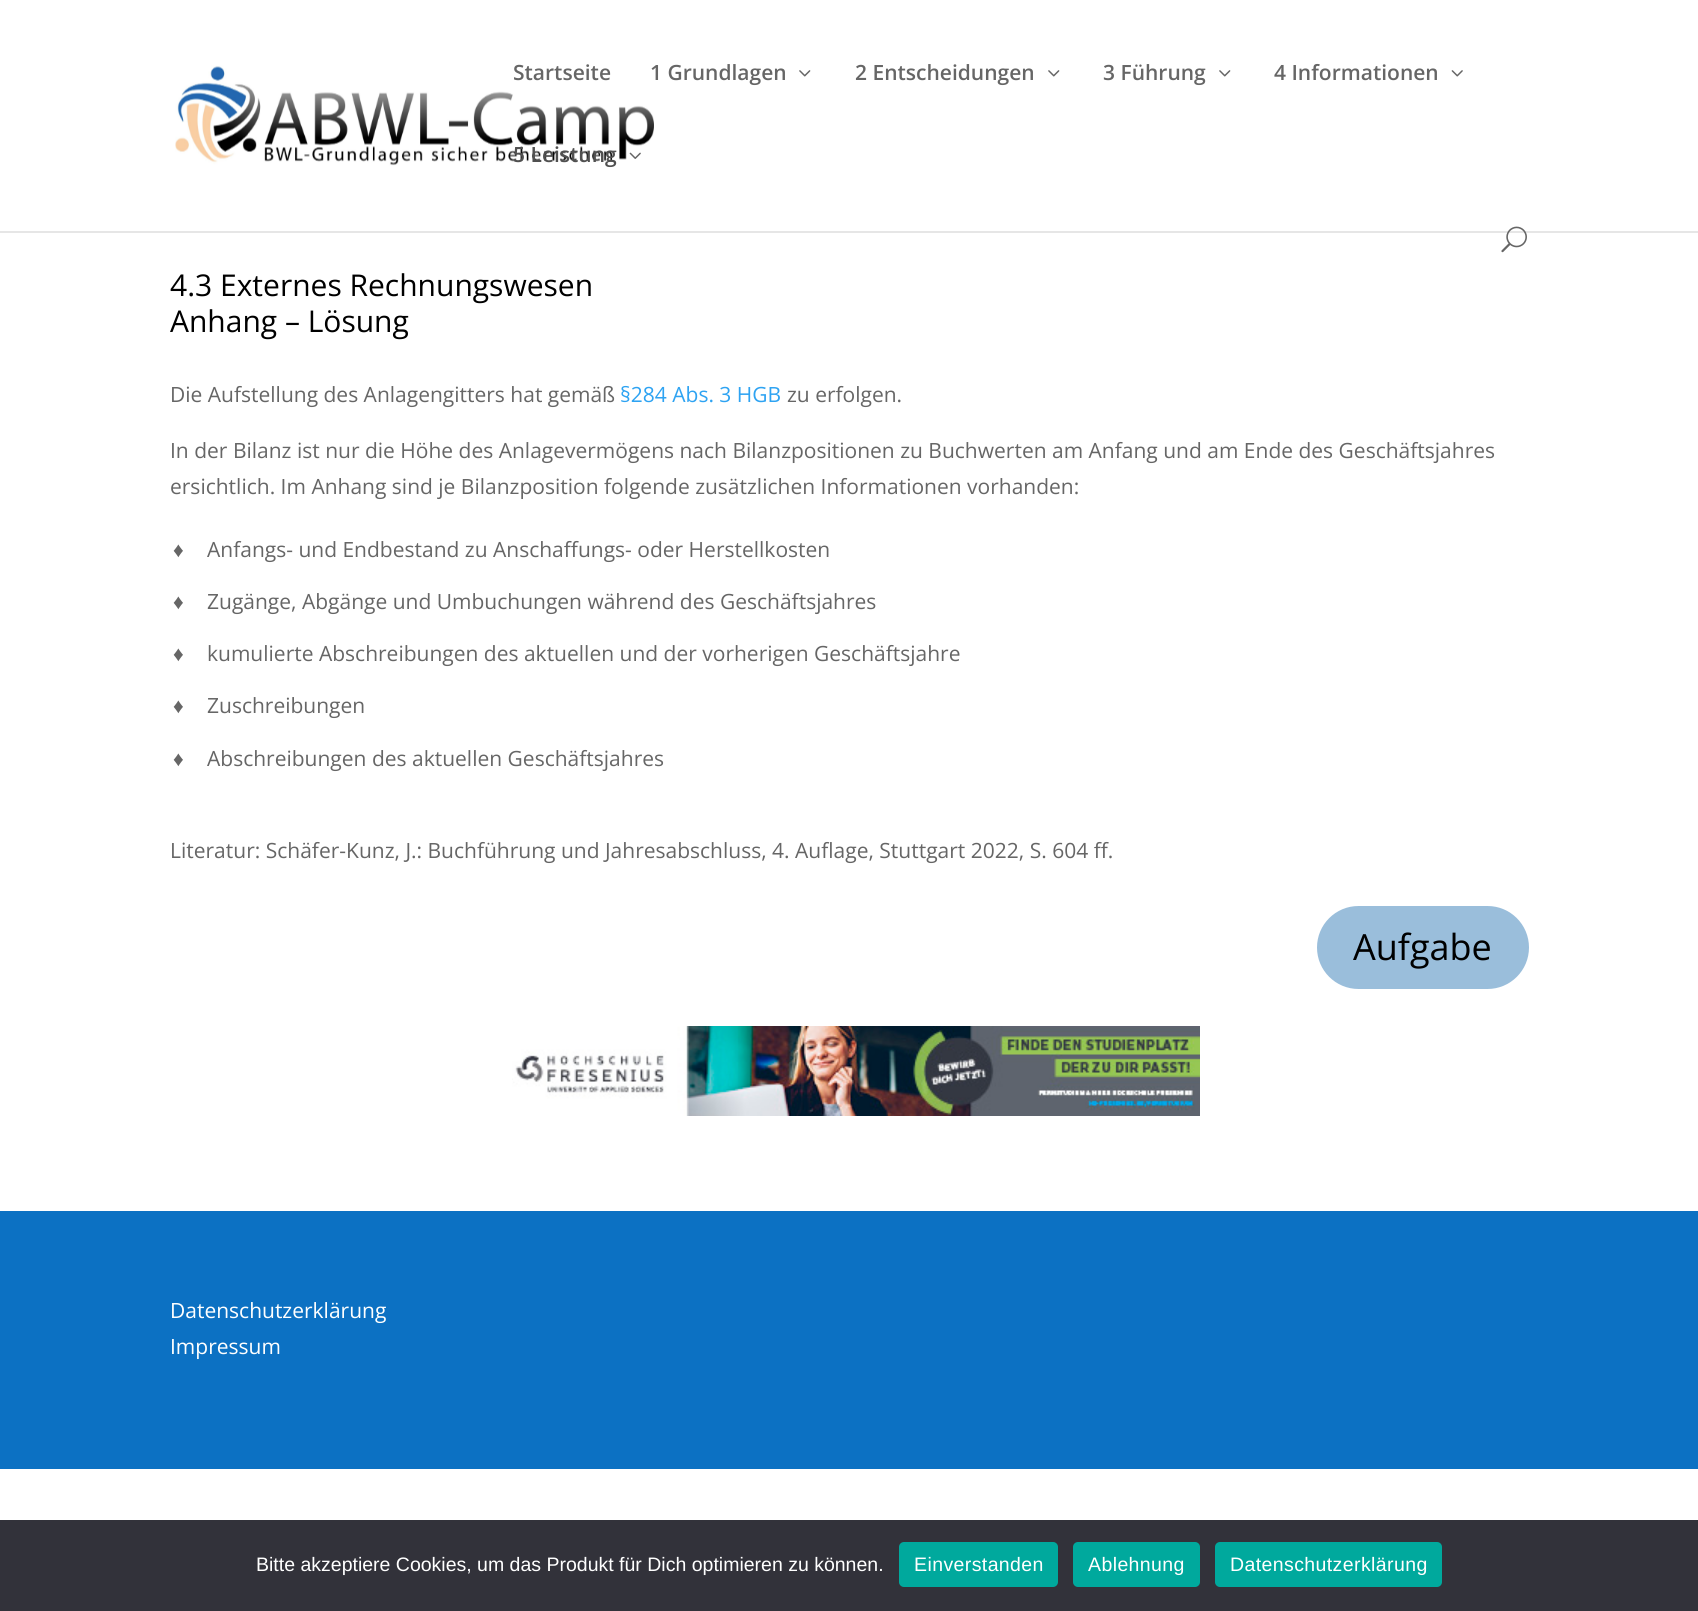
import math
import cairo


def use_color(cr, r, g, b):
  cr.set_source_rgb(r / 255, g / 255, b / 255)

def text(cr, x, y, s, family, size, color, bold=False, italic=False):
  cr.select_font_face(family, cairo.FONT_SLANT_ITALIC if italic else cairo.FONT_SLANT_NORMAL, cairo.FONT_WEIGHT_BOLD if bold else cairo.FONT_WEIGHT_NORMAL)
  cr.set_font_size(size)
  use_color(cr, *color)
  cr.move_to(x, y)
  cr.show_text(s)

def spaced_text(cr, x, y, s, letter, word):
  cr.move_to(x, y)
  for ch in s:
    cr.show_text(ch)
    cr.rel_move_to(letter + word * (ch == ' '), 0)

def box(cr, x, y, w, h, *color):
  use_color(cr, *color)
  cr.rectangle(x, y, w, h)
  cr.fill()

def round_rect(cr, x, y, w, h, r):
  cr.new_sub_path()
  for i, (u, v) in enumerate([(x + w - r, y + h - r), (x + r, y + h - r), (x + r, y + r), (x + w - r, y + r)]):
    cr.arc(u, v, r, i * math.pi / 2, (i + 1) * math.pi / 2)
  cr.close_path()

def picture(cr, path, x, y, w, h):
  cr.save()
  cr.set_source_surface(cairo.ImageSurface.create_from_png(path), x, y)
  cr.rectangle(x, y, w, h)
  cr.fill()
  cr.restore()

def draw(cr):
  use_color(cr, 255, 255, 255)
  cr.paint()
  box(cr, 0, 231, 1698, 2, 230, 230, 230)
  picture(cr, "img_01.png", 175, 65, 479, 101)
  picture(cr, "img_02.png", 799, 70, 12, 7)
  picture(cr, "img_02.png", 1048, 70, 12, 7)
  picture(cr, "img_02.png", 1219, 70, 12, 7)
  picture(cr, "img_03.png", 1451, 70, 12, 7)
  picture(cr, "img_04.png", 629, 152, 12, 7)
  picture(cr, "img_05.png", 1501, 226, 26, 27)
  use_color(cr, 154, 190, 219)
  round_rect(cr, 1317, 906, 212, 83, 41.5)
  cr.fill()
  picture(cr, "img_06.png", 512, 1026, 688, 90)
  box(cr, 0, 1211, 1698, 258, 12, 113, 195)
  box(cr, 0, 1520, 1698, 91, 50, 50, 58)
  use_color(cr, 0, 169, 157)
  round_rect(cr, 899, 1542, 159, 45, 5)
  cr.fill()
  round_rect(cr, 1073, 1542, 127, 45, 5)
  cr.fill()
  round_rect(cr, 1215, 1542, 227, 45, 5)
  cr.fill()
  text(cr, 513, 80, "Startseite", "Open Sans SemiBold", 21, (102, 102, 102))
  text(cr, 650, 80, "1 Grundlagen", "Open Sans SemiBold", 21, (102, 102, 102))
  text(cr, 855, 80, "2 Entscheidungen", "Open Sans SemiBold", 21, (102, 102, 102))
  text(cr, 1103, 80, "3 Führung", "Open Sans SemiBold", 21, (102, 102, 102))
  text(cr, 1274, 80, "4 Informationen", "Open Sans SemiBold", 21, (102, 102, 102))
  text(cr, 513, 162, "5 Leistung", "Open Sans SemiBold", 21, (80, 80, 80))
  text(cr, 170, 296, "4.3 Externes Rechnungswesen", "Open Sans", 30, (0, 0, 0))
  text(cr, 170, 332, "Anhang – Lösung", "Open Sans", 30, (0, 0, 0))
  text(cr, 170, 402, "Die Aufstellung des Anlagengitters hat gemäß", "Open Sans", 21, (102, 102, 102))
  text(cr, 620, 402, "§284 Abs. 3 HGB", "Open Sans", 21, (46, 163, 242))
  text(cr, 787, 402, "zu erfolgen.", "Open Sans", 21, (102, 102, 102))
  text(cr, 170, 458, "In der Bilanz ist nur die Höhe des Anlagevermögens nach Bilanzpositionen zu Buchwerten am Anfang und am Ende des Geschäftsjahres", "Open Sans", 21, (102, 102, 102))
  text(cr, 170, 494, "ersichtlich. Im Anhang sind je Bilanzposition folgende zusätzlichen Informationen vorhanden:", "Open Sans", 21, (102, 102, 102))
  text(cr, 173, 557, "♦", "Liberation Sans", 21, (102, 102, 102))
  text(cr, 207, 557, "Anfangs- und Endbestand zu Anschaffungs- oder Herstellkosten", "Open Sans", 21, (102, 102, 102))
  text(cr, 173, 609, "♦", "Liberation Sans", 21, (102, 102, 102))
  text(cr, 207, 609, "Zugänge, Abgänge und Umbuchungen während des Geschäftsjahres", "Open Sans", 21, (102, 102, 102))
  text(cr, 173, 661, "♦", "Liberation Sans", 21, (102, 102, 102))
  text(cr, 207, 661, "kumulierte Abschreibungen des aktuellen und der vorherigen Geschäftsjahre", "Open Sans", 21, (102, 102, 102))
  text(cr, 173, 713, "♦", "Liberation Sans", 21, (102, 102, 102))
  text(cr, 207, 713, "Zuschreibungen", "Open Sans", 21, (102, 102, 102))
  text(cr, 173, 766, "♦", "Liberation Sans", 21, (102, 102, 102))
  text(cr, 207, 766, "Abschreibungen des aktuellen Geschäftsjahres", "Open Sans", 21, (102, 102, 102))
  text(cr, 170, 858, "Literatur: Schäfer-Kunz, J.: Buchführung und Jahresabschluss, 4. Auflage, Stuttgart 2022, S. 604 ff.", "Open Sans", 21, (102, 102, 102))
  text(cr, 1353, 960, "Aufgabe", "Open Sans", 36, (0, 0, 0))
  text(cr, 170, 1318, "Datenschutzerklärung", "Open Sans", 21, (255, 255, 255))
  text(cr, 170, 1354, "Impressum", "Open Sans", 21, (255, 255, 255))
  text(cr, 256, 1571, "Bitte akzeptiere Cookies, um das Produkt für Dich optimieren zu können.", "Liberation Sans", 19.5, (255, 255, 255))
  spaced_text(cr, 914, 1571, "Einverstanden", 0.4, 0)
  spaced_text(cr, 1088, 1571, "Ablehnung", 0.4, 0)
  spaced_text(cr, 1230, 1571, "Datenschutzerklärung", 0.4, 0)


surface = cairo.ImageSurface(cairo.FORMAT_RGB24, 1698, 1611)
cr = cairo.Context(surface)
options = cairo.FontOptions()
options.set_hint_metrics(cairo.HINT_METRICS_OFF)
options.set_hint_style(cairo.HINT_STYLE_NONE)
cr.set_font_options(options)
cr.set_miter_limit(4)
draw(cr)
surface.write_to_png("out.png")
